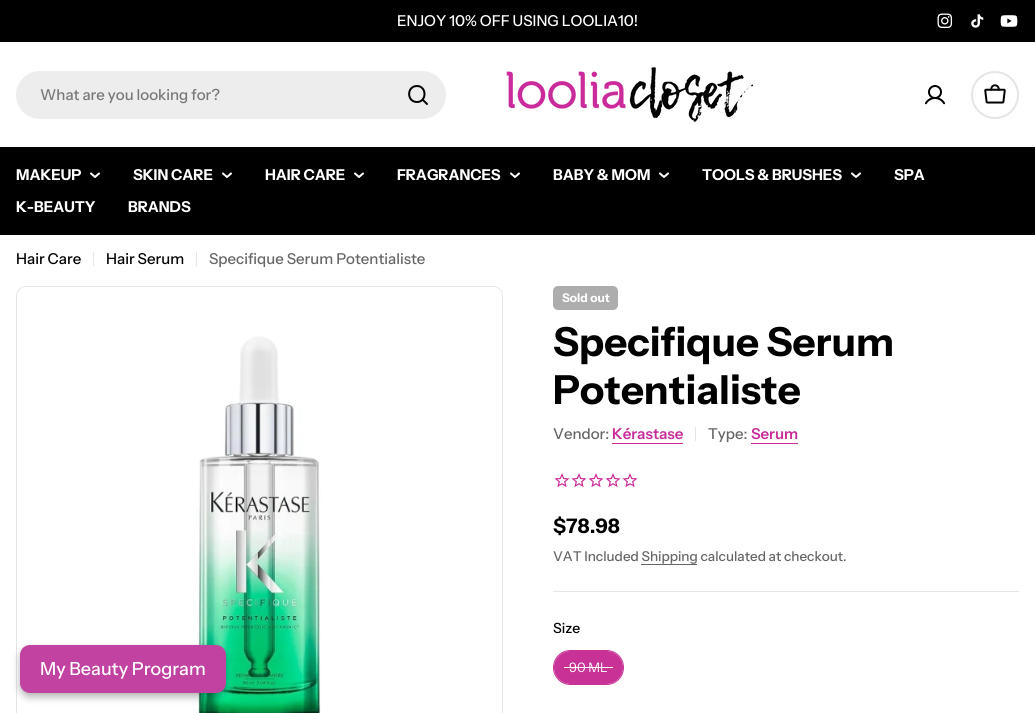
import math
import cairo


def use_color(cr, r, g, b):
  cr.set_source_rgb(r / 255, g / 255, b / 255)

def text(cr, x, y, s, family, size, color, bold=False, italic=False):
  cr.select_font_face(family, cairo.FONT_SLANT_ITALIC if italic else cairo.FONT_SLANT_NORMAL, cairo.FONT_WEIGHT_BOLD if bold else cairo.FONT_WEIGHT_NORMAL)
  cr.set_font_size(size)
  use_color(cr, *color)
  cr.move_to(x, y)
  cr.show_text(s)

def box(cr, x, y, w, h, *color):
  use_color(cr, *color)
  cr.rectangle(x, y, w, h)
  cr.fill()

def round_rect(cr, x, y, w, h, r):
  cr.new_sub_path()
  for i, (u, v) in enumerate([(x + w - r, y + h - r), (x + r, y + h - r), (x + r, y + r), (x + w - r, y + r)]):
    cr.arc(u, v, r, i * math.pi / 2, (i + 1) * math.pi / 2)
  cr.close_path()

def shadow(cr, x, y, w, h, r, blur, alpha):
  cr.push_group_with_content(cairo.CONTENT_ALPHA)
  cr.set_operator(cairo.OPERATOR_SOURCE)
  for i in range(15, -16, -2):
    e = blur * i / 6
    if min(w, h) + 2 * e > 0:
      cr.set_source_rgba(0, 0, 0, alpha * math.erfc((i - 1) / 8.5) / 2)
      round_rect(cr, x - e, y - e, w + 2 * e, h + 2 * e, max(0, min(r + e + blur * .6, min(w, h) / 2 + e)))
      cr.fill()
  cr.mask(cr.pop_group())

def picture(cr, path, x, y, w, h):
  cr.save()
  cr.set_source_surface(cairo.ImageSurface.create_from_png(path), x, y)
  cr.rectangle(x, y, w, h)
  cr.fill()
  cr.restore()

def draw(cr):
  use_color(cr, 255, 255, 255)
  cr.paint()
  box(cr, 0, 0, 1035, 42, 0, 0, 0)
  picture(cr, "img_01.png", 937, 13, 16, 16)
  picture(cr, "img_02.png", 971, 14, 13, 14)
  picture(cr, "img_03.png", 1000, 15, 18, 12)
  use_color(cr, 237, 237, 237)
  round_rect(cr, 16, 71, 430, 48, 24)
  cr.fill()
  cr.new_path()
  cr.move_to(417, 102)
  cr.curve_to(427, 102, 427, 86, 417, 86)
  cr.curve_to(406.5, 86, 406.5, 102, 417, 102)
  cr.close_path()
  cr.move_to(422.5, 99.5)
  cr.line_to(427, 104)
  use_color(cr, 0, 0, 0)
  cr.set_line_cap(cairo.LINE_CAP_ROUND)
  cr.set_line_join(cairo.LINE_JOIN_ROUND)
  cr.stroke()
  picture(cr, "img_04.png", 506, 67, 248, 55)
  picture(cr, "img_05.png", 924, 85, 22, 20)
  cr.arc(995, 95, 23, 0, 2 * math.pi)
  use_color(cr, 229, 229, 229)
  cr.set_line_cap(cairo.LINE_CAP_BUTT)
  cr.set_line_join(cairo.LINE_JOIN_MITER)
  cr.stroke()
  picture(cr, "img_06.png", 984, 84, 22, 20)
  box(cr, 0, 147, 1035, 88, 0, 0, 0)
  cr.new_path()
  cr.move_to(99, 173.5)
  cr.line_to(95, 177)
  cr.line_to(91, 173.5)
  use_color(cr, 255, 255, 255)
  cr.set_line_cap(cairo.LINE_CAP_ROUND)
  cr.set_line_join(cairo.LINE_JOIN_ROUND)
  cr.stroke()
  cr.new_path()
  cr.move_to(231, 173.5)
  cr.line_to(227, 177)
  cr.line_to(223, 173.5)
  cr.stroke()
  cr.new_path()
  cr.move_to(363, 173.5)
  cr.line_to(359, 177)
  cr.line_to(355, 173.5)
  cr.stroke()
  cr.new_path()
  cr.move_to(519, 173.5)
  cr.line_to(515, 177)
  cr.line_to(511, 173.5)
  cr.stroke()
  cr.new_path()
  cr.move_to(668, 173.5)
  cr.line_to(664, 177)
  cr.line_to(660, 173.5)
  cr.stroke()
  cr.new_path()
  cr.move_to(860, 173.5)
  cr.line_to(856, 177)
  cr.line_to(852, 173.5)
  cr.stroke()
  box(cr, 93, 252, 1, 14, 230, 230, 230)
  box(cr, 196, 252, 1, 14, 230, 230, 230)
  round_rect(cr, 16.5, 286.5, 486, 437, 9.5)
  use_color(cr, 229, 229, 229)
  cr.set_line_width(1)
  cr.set_line_cap(cairo.LINE_CAP_BUTT)
  cr.set_line_join(cairo.LINE_JOIN_MITER)
  cr.stroke()
  picture(cr, "img_07.png", 17, 287, 485, 426)
  use_color(cr, 173, 173, 173)
  round_rect(cr, 553, 286, 65, 24, 5)
  cr.fill()
  box(cr, 612, 443, 71, 1, 201, 44, 153)
  box(cr, 695, 427, 1, 14, 229, 229, 229)
  box(cr, 751, 443, 47, 1, 201, 44, 153)
  picture(cr, "img_08.png", 554, 473, 16, 15)
  picture(cr, "img_08.png", 571, 473, 16, 15)
  picture(cr, "img_08.png", 588, 473, 16, 15)
  picture(cr, "img_08.png", 605, 473, 16, 15)
  picture(cr, "img_08.png", 622, 473, 16, 15)
  box(cr, 641, 564, 56, 1, 102, 102, 102)
  box(cr, 553, 591, 466, 1, 229, 229, 229)
  round_rect(cr, 553.5, 650.5, 70, 34, 17)
  use_color(cr, 200, 49, 150)
  cr.stroke()
  round_rect(cr, 554, 651, 69, 33, 16.5)
  cr.fill()
  box(cr, 564, 667, 5, 1, 255, 255, 255)
  box(cr, 569, 667, 44, 1, 255, 255, 255)
  use_color(cr, 0, 0, 0)
  shadow(cr, 20, 649, 206, 48, 10, 4, 0.3)
  use_color(cr, 193, 66, 160)
  round_rect(cr, 20, 645, 206, 48, 10)
  cr.fill()
  text(cr, 397, 26, "ENJOY 10% OFF USING LOOLIA10!", "Instrument Sans Medium", 15, (255, 255, 255))
  text(cr, 40, 100, "What are you looking for?", "Instrument Sans Medium", 15, (119, 119, 119))
  text(cr, 16, 180, "MAKEUP", "Instrument Sans", 15, (255, 255, 255), bold=True)
  text(cr, 133, 180, "SKIN CARE", "Instrument Sans", 15, (255, 255, 255), bold=True)
  text(cr, 265, 180, "HAIR CARE", "Instrument Sans", 15, (255, 255, 255), bold=True)
  text(cr, 397, 180, "FRAGRANCES", "Instrument Sans", 15, (255, 255, 255), bold=True)
  text(cr, 553, 180, "BABY & MOM", "Instrument Sans", 15, (255, 255, 255), bold=True)
  text(cr, 702, 180, "TOOLS & BRUSHES", "Instrument Sans", 15, (255, 255, 255), bold=True)
  text(cr, 894, 180, "SPA", "Instrument Sans", 15, (255, 255, 255), bold=True)
  text(cr, 16, 212, "K-BEAUTY", "Instrument Sans", 15, (255, 255, 255), bold=True)
  text(cr, 128, 212, "BRANDS", "Instrument Sans", 15, (255, 255, 255), bold=True)
  text(cr, 16, 264, "Hair Care", "Instrument Sans Medium", 15, (0, 0, 0))
  text(cr, 106, 264, "Hair Serum", "Instrument Sans Medium", 15, (0, 0, 0))
  text(cr, 209, 264, "Specifique Serum Potentialiste", "Instrument Sans Medium", 15, (102, 102, 102))
  text(cr, 562, 302, "Sold out", "Instrument Sans", 12, (255, 255, 255), bold=True)
  text(cr, 553, 356, "Specifique Serum", "Instrument Sans", 40, (0, 0, 0), bold=True)
  text(cr, 553, 404, "Potentialiste", "Instrument Sans", 40, (0, 0, 0), bold=True)
  text(cr, 553, 439, "Vendor:", "Instrument Sans Medium", 15, (102, 102, 102))
  text(cr, 612, 439, "Kérastase", "Instrument Sans SemiBold", 15, (201, 44, 153))
  text(cr, 708, 439, "Type:", "Instrument Sans Medium", 15, (102, 102, 102))
  text(cr, 751, 439, "Serum", "Instrument Sans SemiBold", 15, (201, 44, 153))
  text(cr, 553, 533, "$78.98", "Instrument Sans", 20, (0, 0, 0), bold=True)
  text(cr, 553, 561, "VAT Included Shipping calculated at checkout.", "Instrument Sans Medium", 13.5, (102, 102, 102))
  text(cr, 553, 633, "Size", "Instrument Sans Medium", 14, (0, 0, 0))
  text(cr, 569, 672, "90 ML", "Instrument Sans", 13, (255, 255, 255))
  text(cr, 40, 675, "My Beauty Program", "Instrument Sans Medium", 18, (255, 255, 255))


surface = cairo.ImageSurface(cairo.FORMAT_RGB24, 1035, 713)
cr = cairo.Context(surface)
options = cairo.FontOptions()
options.set_hint_metrics(cairo.HINT_METRICS_OFF)
options.set_hint_style(cairo.HINT_STYLE_NONE)
cr.set_font_options(options)
cr.set_miter_limit(4)
draw(cr)
surface.write_to_png("out.png")
